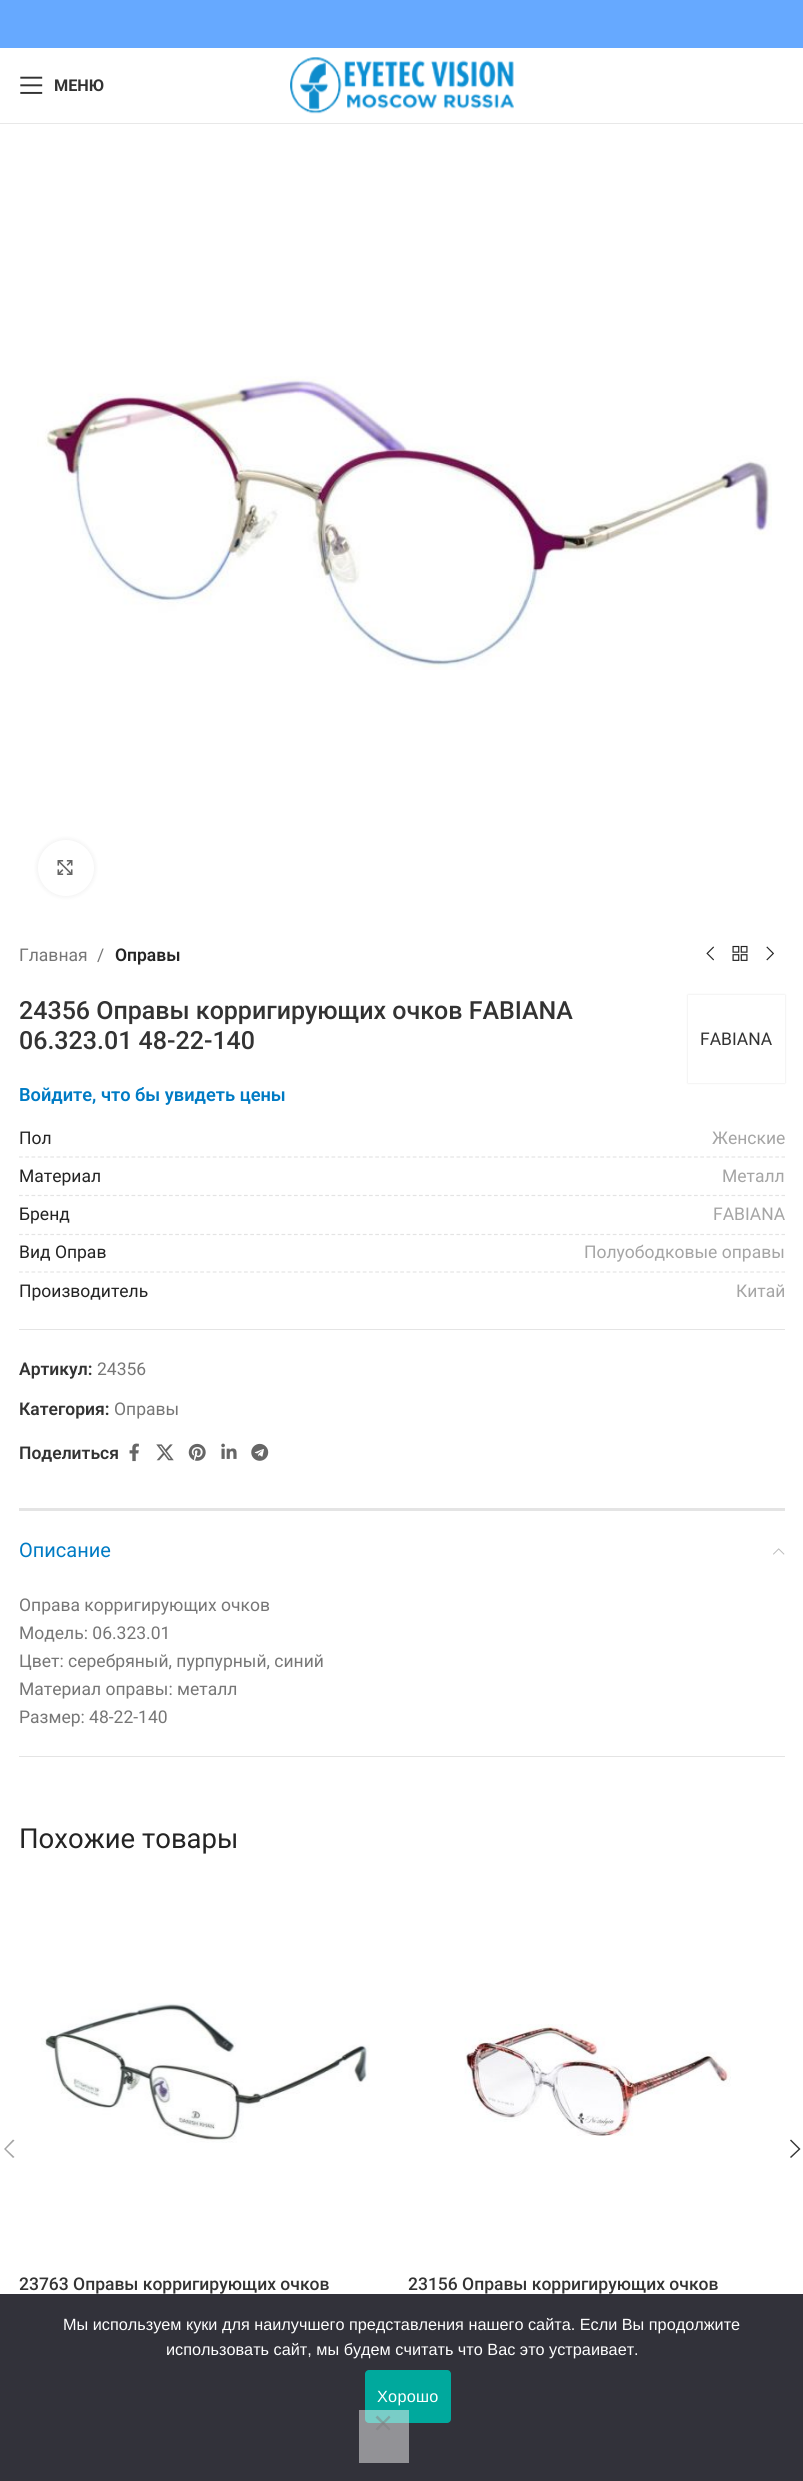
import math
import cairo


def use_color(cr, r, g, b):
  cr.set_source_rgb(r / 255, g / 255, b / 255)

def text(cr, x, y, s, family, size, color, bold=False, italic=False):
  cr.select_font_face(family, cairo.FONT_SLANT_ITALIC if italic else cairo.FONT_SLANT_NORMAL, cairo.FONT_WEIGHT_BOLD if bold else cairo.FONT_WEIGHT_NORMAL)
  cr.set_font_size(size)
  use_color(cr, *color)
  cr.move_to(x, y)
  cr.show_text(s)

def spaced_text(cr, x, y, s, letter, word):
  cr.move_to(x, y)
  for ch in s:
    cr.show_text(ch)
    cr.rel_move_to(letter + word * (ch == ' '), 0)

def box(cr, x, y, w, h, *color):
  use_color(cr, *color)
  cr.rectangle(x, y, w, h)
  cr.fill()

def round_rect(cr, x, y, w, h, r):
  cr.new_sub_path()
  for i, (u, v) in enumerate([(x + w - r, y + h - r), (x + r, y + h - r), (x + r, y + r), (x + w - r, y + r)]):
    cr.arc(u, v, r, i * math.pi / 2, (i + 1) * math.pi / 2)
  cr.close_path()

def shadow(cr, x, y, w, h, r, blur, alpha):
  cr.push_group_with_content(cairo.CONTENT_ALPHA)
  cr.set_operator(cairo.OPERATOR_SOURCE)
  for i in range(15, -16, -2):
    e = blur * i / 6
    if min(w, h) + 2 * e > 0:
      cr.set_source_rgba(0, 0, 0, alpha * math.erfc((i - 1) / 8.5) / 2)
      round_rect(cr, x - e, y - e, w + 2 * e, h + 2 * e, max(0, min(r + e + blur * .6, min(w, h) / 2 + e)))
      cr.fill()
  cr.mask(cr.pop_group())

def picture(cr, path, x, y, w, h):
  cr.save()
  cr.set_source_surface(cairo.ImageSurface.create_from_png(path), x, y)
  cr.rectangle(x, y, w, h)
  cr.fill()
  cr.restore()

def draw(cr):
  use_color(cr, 255, 255, 255)
  cr.paint()
  box(cr, 0, 0, 803, 48, 102, 169, 255)
  box(cr, 0, 123, 803, 1, 232, 232, 232)
  picture(cr, "img_01.png", 20, 76, 23, 18)
  picture(cr, "img_02.png", 290, 57, 224, 57)
  picture(cr, "img_03.png", 37, 376, 735, 294)
  use_color(cr, 0, 0, 0)
  shadow(cr, 38, 840, 56, 56, 28, 3, 0.08)
  use_color(cr, 255, 255, 255)
  cr.arc(66, 868, 28, 0, 2 * math.pi)
  cr.fill()
  picture(cr, "img_04.png", 57, 860, 16, 15)
  picture(cr, "img_05.png", 706, 946, 8, 15)
  picture(cr, "img_06.png", 732, 945, 16, 16)
  picture(cr, "img_07.png", 766, 946, 8, 15)
  use_color(cr, 0, 0, 0)
  shadow(cr, 688, 995, 97, 88, 0, 1, 0.12)
  box(cr, 688, 995, 97, 88, 255, 255, 255)
  cr.new_path()
  cr.move_to(19, 1157)
  cr.line_to(785, 1157)
  use_color(cr, 228, 228, 228)
  cr.set_line_width(1.2)
  cr.set_dash([3.75, 2.5])
  cr.stroke()
  cr.new_path()
  cr.move_to(19, 1195.5)
  cr.line_to(785, 1195.5)
  cr.stroke()
  cr.new_path()
  cr.move_to(19, 1234.5)
  cr.line_to(785, 1234.5)
  cr.stroke()
  cr.new_path()
  cr.move_to(19, 1272)
  cr.line_to(785, 1272)
  cr.stroke()
  box(cr, 19, 1329, 766, 1, 228, 228, 228)
  picture(cr, "img_08.png", 129, 1443, 10, 19)
  picture(cr, "img_09.png", 156, 1444, 18, 17)
  picture(cr, "img_10.png", 188, 1443, 18, 18)
  picture(cr, "img_11.png", 221, 1443, 16, 16)
  picture(cr, "img_12.png", 251, 1443, 18, 18)
  box(cr, 19, 1508, 766, 3, 228, 228, 228)
  box(cr, 19, 1756, 766, 1, 228, 228, 228)
  picture(cr, "img_13.png", 773, 1548, 12, 7)
  use_color(cr, 165, 165, 165)
  cr.new_path()
  cr.move_to(14.5, 2140.5)
  cr.line_to(13, 2139.5)
  cr.line_to(4, 2149)
  cr.line_to(13, 2158)
  cr.line_to(14.5, 2157)
  cr.line_to(6, 2149)
  cr.close_path()
  cr.fill()
  use_color(cr, 51, 51, 51)
  cr.new_path()
  cr.move_to(790, 2140.5)
  cr.line_to(798.5, 2149)
  cr.line_to(790, 2157)
  cr.line_to(791, 2158)
  cr.line_to(800.5, 2149)
  cr.line_to(791, 2139.5)
  cr.close_path()
  cr.fill()
  picture(cr, "img_14.png", 41, 2003, 329, 140)
  picture(cr, "img_15.png", 464, 2024, 267, 112)
  box(cr, 0, 2294, 803, 187, 50, 50, 58)
  use_color(cr, 0, 169, 157)
  round_rect(cr, 365, 2370, 86, 53, 4)
  cr.fill()
  cr.set_source_rgba(0.953, 0.953, 0.953, 0.5)
  cr.rectangle(359, 2410, 50, 53)
  cr.fill()
  cr.set_source_rgba(0.502, 0.502, 0.502, 0.5)
  cr.new_path()
  cr.move_to(389, 2415.5)
  cr.line_to(390.5, 2417.5)
  cr.line_to(377.5, 2430.5)
  cr.line_to(375.5, 2429)
  cr.close_path()
  cr.fill()
  cr.new_path()
  cr.move_to(375.5, 2417.5)
  cr.line_to(377.5, 2415.5)
  cr.line_to(390.5, 2429)
  cr.line_to(389, 2430.5)
  cr.close_path()
  cr.fill()
  text(cr, 54, 91, "МЕНЮ", "Roboto", 16.25, (51, 51, 51), bold=True)
  text(cr, 19, 961, "Главная", "Roboto", 17.5, (118, 118, 118))
  text(cr, 97, 961, "/", "Roboto", 17.5, (118, 118, 118))
  text(cr, 115, 961, "Оправы", "Roboto SemiBold", 17.5, (36, 36, 36))
  text(cr, 19, 1019, "24356 Оправы корригирующих очков FABIANA", "Roboto Medium", 25, (51, 51, 51))
  text(cr, 19, 1049, "06.323.01 48-22-140", "Roboto Medium", 25, (51, 51, 51))
  text(cr, 700, 1045, "FABIANA", "Roboto", 17.5, (51, 51, 51))
  text(cr, 19, 1101, "Войдите, что бы увидеть цены", "Roboto SemiBold", 18.25, (0, 123, 196))
  text(cr, 19, 1144, "Пол", "Roboto", 17.5, (36, 36, 36))
  text(cr, 712, 1144, "Женские", "Roboto", 17.5, (165, 165, 165))
  text(cr, 19, 1182, "Материал", "Roboto", 17.5, (36, 36, 36))
  text(cr, 722, 1182, "Металл", "Roboto", 17.5, (165, 165, 165))
  text(cr, 19, 1220, "Бренд", "Roboto", 17.5, (36, 36, 36))
  text(cr, 713, 1220, "FABIANA", "Roboto", 17.5, (165, 165, 165))
  text(cr, 19, 1258, "Вид Оправ", "Roboto", 17.5, (36, 36, 36))
  text(cr, 584, 1258, "Полуободковые оправы", "Roboto", 17.5, (165, 165, 165))
  text(cr, 19, 1297, "Производитель", "Roboto", 17.5, (36, 36, 36))
  text(cr, 736, 1297, "Китай", "Roboto", 17.5, (165, 165, 165))
  text(cr, 19, 1375, "Артикул:", "Roboto SemiBold", 17.5, (51, 51, 51))
  text(cr, 97, 1375, "24356", "Roboto", 17.5, (118, 118, 118))
  text(cr, 19, 1415, "Категория:", "Roboto SemiBold", 17.5, (51, 51, 51))
  text(cr, 114, 1415, "Оправы", "Roboto", 17.5, (118, 118, 118))
  text(cr, 19, 1459, "Поделиться", "Roboto SemiBold", 17.5, (51, 51, 51))
  text(cr, 19, 1557, "Описание", "Roboto", 20, (0, 123, 196))
  text(cr, 19, 1611, "Оправа корригирующих очков", "Roboto", 17.5, (118, 118, 118))
  text(cr, 19, 1639, "Модель: 06.323.01", "Roboto", 17.5, (118, 118, 118))
  text(cr, 19, 1667, "Цвет: серебряный, пурпурный, синий", "Roboto", 17.5, (118, 118, 118))
  text(cr, 19, 1695, "Материал оправы: металл", "Roboto", 17.5, (118, 118, 118))
  text(cr, 19, 1723, "Размер: 48-22-140", "Roboto", 17.5, (118, 118, 118))
  text(cr, 19, 1848, "Похожие товары", "Roboto", 27.5, (36, 36, 36))
  text(cr, 19, 2290, "23763 Оправы корригирующих очков", "Roboto Medium", 17.5, (51, 51, 51))
  text(cr, 408, 2290, "23156 Оправы корригирующих очков", "Roboto Medium", 17.5, (51, 51, 51))
  text(cr, 63, 2330, "Мы используем куки для наилучшего представления нашего сайта. Если Вы продолжите", "Liberation Sans", 16.25, (255, 255, 255))
  text(cr, 166, 2355, "использовать сайт, мы будем считать что Вас это устраивает.", "Liberation Sans", 16.25, (255, 255, 255))
  spaced_text(cr, 377, 2402, "Хорошо", 0.25, 0)


surface = cairo.ImageSurface(cairo.FORMAT_RGB24, 803, 2481)
cr = cairo.Context(surface)
options = cairo.FontOptions()
options.set_hint_metrics(cairo.HINT_METRICS_OFF)
options.set_hint_style(cairo.HINT_STYLE_NONE)
cr.set_font_options(options)
cr.set_miter_limit(4)
draw(cr)
surface.write_to_png("out.png")
